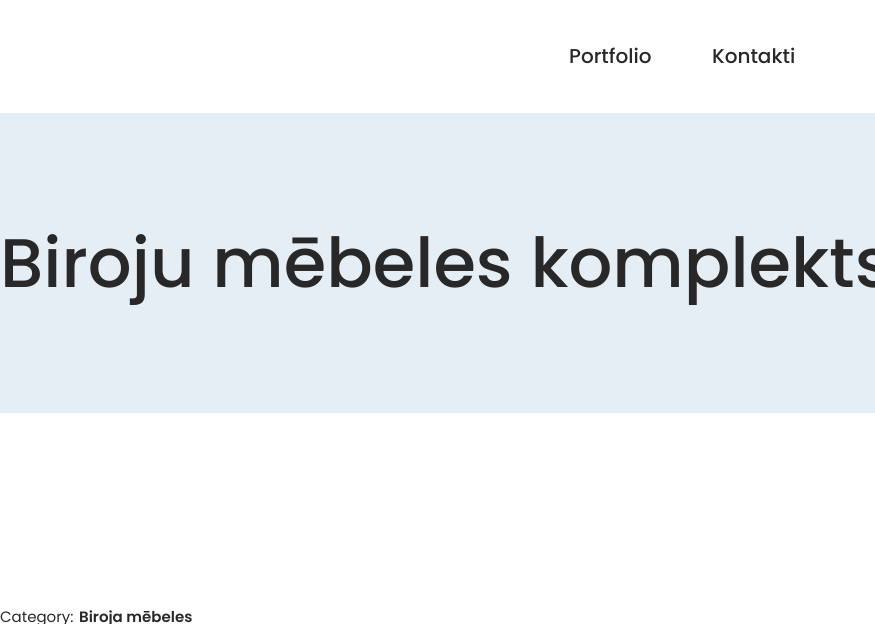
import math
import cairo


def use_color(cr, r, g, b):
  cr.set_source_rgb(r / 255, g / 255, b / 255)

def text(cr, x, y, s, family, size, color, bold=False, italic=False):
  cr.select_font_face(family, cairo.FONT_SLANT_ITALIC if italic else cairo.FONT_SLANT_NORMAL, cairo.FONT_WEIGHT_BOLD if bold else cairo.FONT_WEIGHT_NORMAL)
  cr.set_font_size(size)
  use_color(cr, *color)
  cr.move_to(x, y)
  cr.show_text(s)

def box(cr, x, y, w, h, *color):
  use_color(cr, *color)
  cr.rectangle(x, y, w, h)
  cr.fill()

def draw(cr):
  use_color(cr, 255, 255, 255)
  cr.paint()
  box(cr, 0, 113, 875, 300, 229, 237, 245)
  text(cr, 569, 63, "Portfolio", "Poppins Medium", 20, (40, 40, 40))
  text(cr, 712, 63, "Kontakti", "Poppins Medium", 20, (40, 40, 40))
  text(cr, 0, 287, "Biroju mēbeles komplekts", "Poppins Medium", 68.75, (40, 40, 40))
  text(cr, 0, 622, "Category:", "Poppins", 15, (40, 40, 40))
  text(cr, 79, 622, "Biroja mēbeles", "Poppins SemiBold", 15, (40, 40, 40))


surface = cairo.ImageSurface(cairo.FORMAT_RGB24, 875, 624)
cr = cairo.Context(surface)
options = cairo.FontOptions()
options.set_hint_metrics(cairo.HINT_METRICS_OFF)
options.set_hint_style(cairo.HINT_STYLE_NONE)
cr.set_font_options(options)
cr.set_miter_limit(4)
draw(cr)
surface.write_to_png("out.png")
